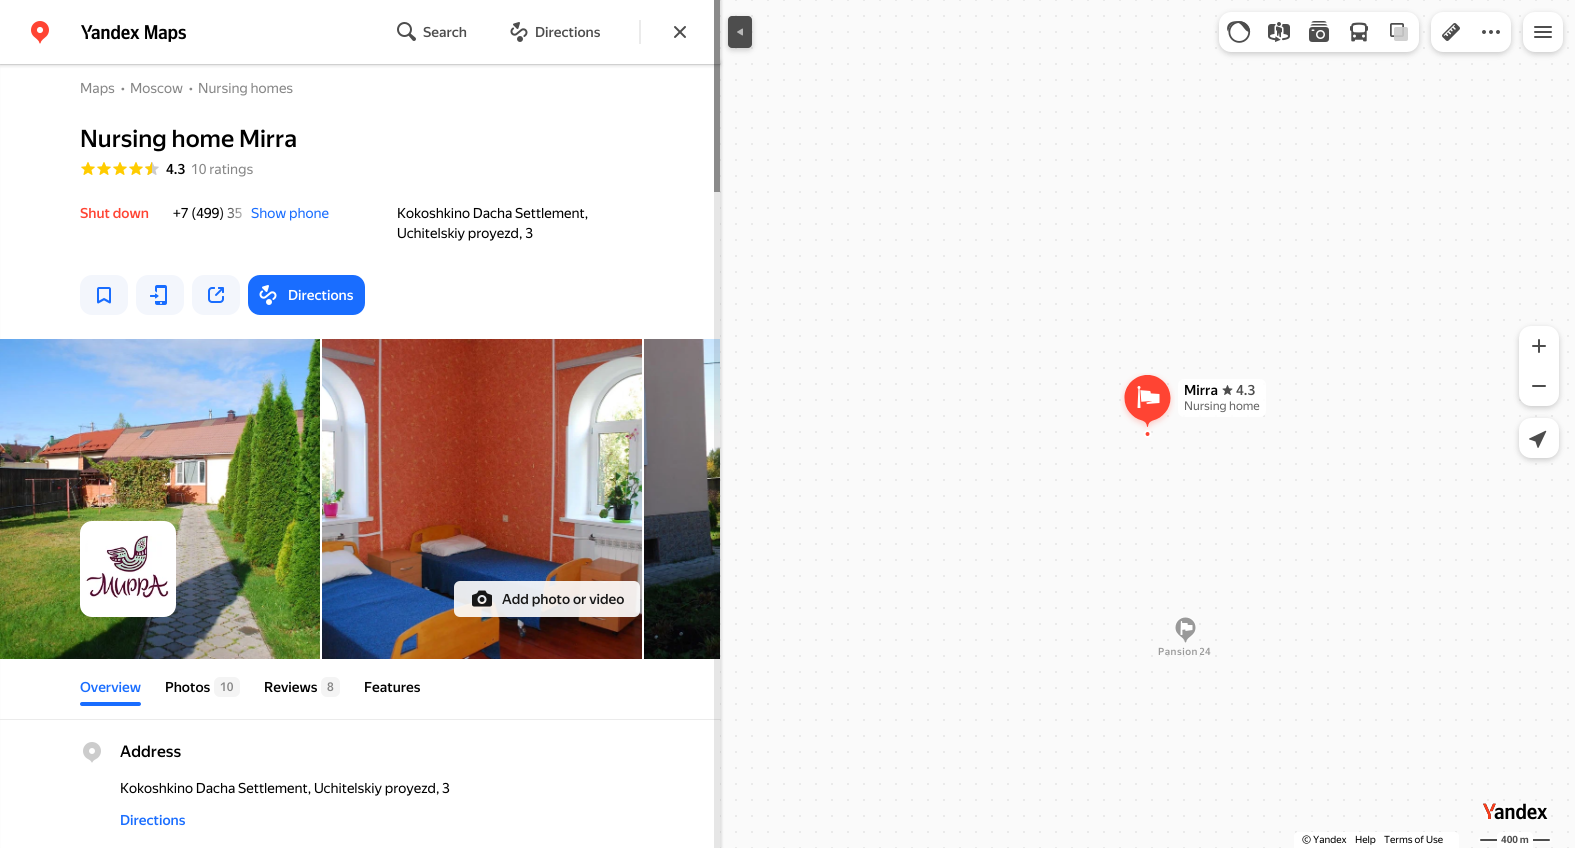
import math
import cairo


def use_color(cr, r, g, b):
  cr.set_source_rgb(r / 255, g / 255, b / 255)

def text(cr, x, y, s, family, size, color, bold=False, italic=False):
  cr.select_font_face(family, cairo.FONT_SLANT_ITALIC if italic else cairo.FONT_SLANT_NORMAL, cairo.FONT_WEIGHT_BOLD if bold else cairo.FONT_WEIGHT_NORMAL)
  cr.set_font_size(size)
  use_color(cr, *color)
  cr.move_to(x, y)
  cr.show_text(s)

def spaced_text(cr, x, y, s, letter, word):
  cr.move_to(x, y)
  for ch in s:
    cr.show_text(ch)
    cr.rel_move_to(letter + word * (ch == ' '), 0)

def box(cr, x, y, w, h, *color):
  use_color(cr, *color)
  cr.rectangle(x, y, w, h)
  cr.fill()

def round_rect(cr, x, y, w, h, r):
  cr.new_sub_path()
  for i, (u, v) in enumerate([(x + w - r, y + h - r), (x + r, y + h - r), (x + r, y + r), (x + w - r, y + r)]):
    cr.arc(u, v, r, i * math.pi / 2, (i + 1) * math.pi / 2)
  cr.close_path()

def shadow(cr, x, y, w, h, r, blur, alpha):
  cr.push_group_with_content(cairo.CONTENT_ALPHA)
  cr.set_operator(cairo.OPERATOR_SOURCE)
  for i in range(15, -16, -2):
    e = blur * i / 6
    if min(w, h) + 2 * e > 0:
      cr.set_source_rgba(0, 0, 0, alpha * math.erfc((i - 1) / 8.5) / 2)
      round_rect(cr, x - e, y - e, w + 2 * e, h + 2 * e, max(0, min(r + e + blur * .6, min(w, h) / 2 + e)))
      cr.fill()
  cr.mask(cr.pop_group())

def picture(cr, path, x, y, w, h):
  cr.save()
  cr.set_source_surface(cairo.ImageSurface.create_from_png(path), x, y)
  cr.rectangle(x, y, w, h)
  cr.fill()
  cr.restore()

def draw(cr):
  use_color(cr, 255, 255, 255)
  cr.paint()
  picture(cr, "img_01.png", 720, 0, 855, 848)
  use_color(cr, 0, 0, 0)
  shadow(cr, 2, 0, 720, 848, 0, 1, 0.1)
  box(cr, 1, 65, 719, 783, 255, 255, 255)
  box(cr, 0, 64, 720, 1, 235, 235, 235)
  use_color(cr, 0, 0, 0)
  shadow(cr, 0, 61, 720, 4, 0, 2, 0.2)
  shadow(cr, 728, 18, 24, 32, 4, 3, 0.2)
  box(cr, 0, 0, 720, 64, 255, 255, 255)
  picture(cr, "img_02.png", 31, 21, 18, 23)
  picture(cr, "img_03.png", 81, 25, 105, 17)
  picture(cr, "img_04.png", 397, 22, 19, 19)
  picture(cr, "img_05.png", 510, 22, 18, 20)
  box(cr, 639, 20, 2, 24, 235, 235, 235)
  picture(cr, "img_06.png", 674, 26, 12, 12)
  picture(cr, "img_07.png", 81, 162, 14, 13)
  picture(cr, "img_07.png", 97, 162, 14, 13)
  picture(cr, "img_07.png", 113, 162, 14, 13)
  picture(cr, "img_07.png", 129, 162, 14, 13)
  picture(cr, "img_08.png", 145, 162, 14, 13)
  use_color(cr, 243, 246, 252)
  round_rect(cr, 80, 275, 48, 40, 12)
  cr.fill()
  picture(cr, "img_09.png", 97, 287, 14, 17)
  round_rect(cr, 136, 275, 48, 40, 12)
  cr.fill()
  picture(cr, "img_10.png", 150, 285, 17, 20)
  round_rect(cr, 192, 275, 48, 40, 12)
  cr.fill()
  picture(cr, "img_11.png", 208, 287, 16, 16)
  use_color(cr, 25, 109, 255)
  round_rect(cr, 248, 275, 117, 40, 12)
  cr.fill()
  picture(cr, "img_12.png", 259, 285, 18, 20)
  picture(cr, "img_13.png", 0, 339, 320, 320)
  picture(cr, "img_14.png", 322, 339, 320, 320)
  picture(cr, "img_15.png", 644, 339, 76, 320)
  use_color(cr, 255, 255, 255)
  round_rect(cr, 80, 521, 96, 96, 12)
  cr.fill()
  picture(cr, "img_16.png", 85, 534, 85, 64)
  cr.set_source_rgba(1, 1, 1, 0.9)
  round_rect(cr, 454, 581, 186, 36, 6)
  cr.fill()
  picture(cr, "img_17.png", 472, 590, 20, 17)
  use_color(cr, 244, 244, 244)
  round_rect(cr, 214, 677, 26, 20, 6)
  cr.fill()
  round_rect(cr, 321, 677, 19, 20, 6)
  cr.fill()
  use_color(cr, 25, 109, 255)
  round_rect(cr, 80, 702, 61, 4, 2)
  cr.fill()
  box(cr, 0, 719, 720, 1, 235, 235, 235)
  picture(cr, "img_18.png", 83, 742, 18, 21)
  cr.set_source_rgba(0, 0, 0, 0.1)
  cr.rectangle(714, 0, 6, 848)
  cr.fill()
  cr.set_source_rgba(0, 0, 0, 0.4)
  cr.rectangle(714, 0, 6, 192)
  cr.fill()
  use_color(cr, 77, 77, 77)
  round_rect(cr, 728, 16, 24, 32, 4)
  cr.fill()
  picture(cr, "img_19.png", 737, 28, 6, 8)
  use_color(cr, 0, 0, 0)
  shadow(cr, 1219, 14, 200, 40, 12, 3, 0.2)
  use_color(cr, 255, 255, 255)
  cr.new_path()
  cr.move_to(1231, 12)
  cr.line_to(1259, 12)
  cr.line_to(1259, 52)
  cr.line_to(1231, 52)
  cr.curve_to(1224.5, 52, 1219, 46.5, 1219, 40)
  cr.line_to(1219, 24)
  cr.curve_to(1219, 17.5, 1224.5, 12, 1231, 12)
  cr.close_path()
  cr.fill()
  picture(cr, "img_20.png", 1227, 21, 24, 22)
  box(cr, 1259, 12, 120, 40, 255, 255, 255)
  picture(cr, "img_21.png", 1268, 22, 22, 20)
  cr.new_path()
  cr.move_to(1379, 12)
  cr.line_to(1407, 12)
  cr.curve_to(1413.5, 12, 1419, 17.5, 1419, 24)
  cr.line_to(1419, 40)
  cr.curve_to(1419, 46.5, 1413.5, 52, 1407, 52)
  cr.line_to(1379, 52)
  cr.close_path()
  cr.fill()
  picture(cr, "img_22.png", 1390, 23, 18, 18)
  picture(cr, "img_23.png", 1309, 21, 20, 21)
  picture(cr, "img_24.png", 1350, 22, 18, 20)
  use_color(cr, 0, 0, 0)
  shadow(cr, 1431, 14, 80, 40, 12, 3, 0.2)
  use_color(cr, 255, 255, 255)
  cr.new_path()
  cr.move_to(1443, 12)
  cr.line_to(1471, 12)
  cr.line_to(1471, 52)
  cr.line_to(1443, 52)
  cr.curve_to(1436.5, 52, 1431, 46.5, 1431, 40)
  cr.line_to(1431, 24)
  cr.curve_to(1431, 17.5, 1436.5, 12, 1443, 12)
  cr.close_path()
  cr.fill()
  picture(cr, "img_25.png", 1442, 23, 18, 18)
  cr.new_path()
  cr.move_to(1471, 12)
  cr.line_to(1499, 12)
  cr.curve_to(1505.5, 12, 1511, 17.5, 1511, 24)
  cr.line_to(1511, 40)
  cr.curve_to(1511, 46.5, 1505.5, 52, 1499, 52)
  cr.line_to(1471, 52)
  cr.close_path()
  cr.fill()
  picture(cr, "img_26.png", 1482, 30, 18, 4)
  use_color(cr, 0, 0, 0)
  shadow(cr, 1523, 14, 40, 40, 12, 3, 0.2)
  use_color(cr, 255, 255, 255)
  round_rect(cr, 1523, 12, 40, 40, 12)
  cr.fill()
  picture(cr, "img_27.png", 1534, 26, 18, 12)
  use_color(cr, 0, 0, 0)
  shadow(cr, 1519, 328, 40, 80, 12, 3, 0.2)
  use_color(cr, 255, 255, 255)
  cr.new_path()
  cr.move_to(1531, 326)
  cr.line_to(1547, 326)
  cr.curve_to(1553.5, 326, 1559, 331.5, 1559, 338)
  cr.line_to(1559, 366)
  cr.line_to(1519, 366)
  cr.line_to(1519, 338)
  cr.curve_to(1519, 331.5, 1524.5, 326, 1531, 326)
  cr.close_path()
  cr.fill()
  picture(cr, "img_28.png", 1532, 339, 14, 14)
  cr.new_path()
  cr.move_to(1519, 366)
  cr.line_to(1559, 366)
  cr.line_to(1559, 394)
  cr.curve_to(1559, 400.5, 1553.5, 406, 1547, 406)
  cr.line_to(1531, 406)
  cr.curve_to(1524.5, 406, 1519, 400.5, 1519, 394)
  cr.close_path()
  cr.fill()
  picture(cr, "img_29.png", 1532, 385, 14, 2)
  use_color(cr, 0, 0, 0)
  shadow(cr, 1519, 420, 40, 40, 12, 3, 0.2)
  use_color(cr, 255, 255, 255)
  round_rect(cr, 1519, 418, 40, 40, 12)
  cr.fill()
  picture(cr, "img_30.png", 1529, 430, 18, 18)
  picture(cr, "img_31.png", 1483, 803, 65, 17)
  cr.new_path()
  cr.move_to(1298, 832)
  cr.line_to(1455, 832)
  cr.curve_to(1457, 832, 1459, 834, 1459, 836)
  cr.line_to(1459, 848)
  cr.line_to(1294, 848)
  cr.line_to(1294, 836)
  cr.curve_to(1294, 834, 1296, 832, 1298, 832)
  cr.close_path()
  cr.fill()
  use_color(cr, 253, 253, 253)
  round_rect(cr, 1478, 837, 74, 6, 3)
  cr.fill()
  use_color(cr, 77, 77, 77)
  round_rect(cr, 1480, 839, 70, 2, 1)
  cr.fill()
  use_color(cr, 255, 255, 255)
  cr.new_path()
  cr.move_to(1501, 832)
  cr.line_to(1529, 832)
  cr.curve_to(1531, 832, 1533, 834, 1533, 836)
  cr.line_to(1533, 848)
  cr.line_to(1497, 848)
  cr.line_to(1497, 836)
  cr.curve_to(1497, 834, 1499, 832, 1501, 832)
  cr.close_path()
  cr.fill()
  picture(cr, "img_32.png", 1120, 373, 55, 65)
  picture(cr, "img_33.png", 1137, 386, 23, 22)
  cr.set_source_rgba(1, 1, 1, 0.9)
  round_rect(cr, 1178, 379, 88, 38, 6)
  cr.fill()
  picture(cr, "img_34.png", 1222, 385, 11, 10)
  picture(cr, "img_35.png", 1175, 617, 21, 26)
  picture(cr, "img_36.png", 1180, 621, 13, 14)
  text(cr, 423, 37, "Search", "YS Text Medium", 14, (77, 77, 77))
  text(cr, 535, 37, "Directions", "YS Text Medium", 14, (77, 77, 77))
  text(cr, 80, 93, "Maps", "YS Text", 14, (135, 135, 135))
  text(cr, 121, 93, "•", "YS Text", 14, (135, 135, 135))
  text(cr, 130, 93, "Moscow", "YS Text", 14, (135, 135, 135))
  text(cr, 189, 93, "•", "YS Text", 14, (135, 135, 135))
  text(cr, 198, 93, "Nursing homes", "YS Text", 14, (135, 135, 135))
  text(cr, 80, 147, "Nursing home Mirra", "YS Text Medium", 24, (0, 0, 0))
  text(cr, 166, 174, "4.3", "YS Text Medium", 14, (0, 0, 0))
  text(cr, 191, 174, "10 ratings", "YS Text", 14, (135, 135, 135))
  text(cr, 80, 218, "Shut down", "YS Text Medium", 14, (255, 68, 51))
  text(cr, 173, 218, "+7 (499) 35", "YS Text", 14, (0, 0, 0))
  gradient = cairo.LinearGradient(219, 213, 251, 213)
  gradient.add_color_stop_rgba(0, 1, 1, 1, 0)
  gradient.add_color_stop_rgba(1, 1, 1, 1, 1)
  cr.set_source(gradient)
  cr.rectangle(220, 207, 22, 12)
  cr.fill()
  text(cr, 251, 218, "Show phone", "YS Text", 14, (25, 109, 255))
  text(cr, 397, 218, "Kokoshkino Dacha Settlement,", "YS Text", 14, (0, 0, 0))
  text(cr, 397, 238, "Uchitelskiy proyezd, 3", "YS Text", 14, (0, 0, 0))
  text(cr, 288, 300, "Directions", "YS Text Medium", 14, (255, 255, 255))
  text(cr, 502, 604, "Add photo or video", "YS Text Medium", 14, (24, 24, 24))
  text(cr, 80, 692, "Overview", "YS Text Medium", 14, (25, 109, 255))
  text(cr, 165, 692, "Photos", "YS Text Medium", 14, (0, 0, 0))
  text(cr, 220, 691, "10", "YS Text Medium", 12, (135, 135, 135))
  text(cr, 264, 692, "Reviews", "YS Text Medium", 14, (0, 0, 0))
  text(cr, 327, 691, "8", "YS Text Medium", 12, (135, 135, 135))
  text(cr, 364, 692, "Features", "YS Text Medium", 14, (0, 0, 0))
  text(cr, 120, 757, "Address", "YS Text Medium", 16, (0, 0, 0))
  text(cr, 120, 793, "Kokoshkino Dacha Settlement, Uchitelskiy proyezd, 3", "YS Text", 14, (0, 0, 0))
  text(cr, 120, 825, "Directions", "YS Text Medium", 14, (25, 109, 255))
  text(cr, 1302, 843, "© Yandex", "YS Text", 10, (0, 0, 0))
  text(cr, 1355, 843, "Help", "YS Text", 10, (0, 0, 0))
  text(cr, 1384, 843, "Terms of Use", "YS Text", 10, (0, 0, 0))
  text(cr, 1501, 843, "400 m", "YS Text", 10, (77, 77, 77), bold=True)
  text(cr, 1184, 395, "Mirra", "YS Text Medium", 14, (0, 0, 0))
  text(cr, 1236, 395, "4.3", "YS Text Medium", 14, (77, 77, 77))
  text(cr, 1184, 410, "Nursing home", "YS Text", 12, (102, 102, 102))
  cr.select_font_face("YS Text Medium")
  cr.set_font_size(10)
  use_color(cr, 153, 153, 153)
  spaced_text(cr, 1158, 655, "Pansion", 0.5, 0)
  cr.save()
  cr.rectangle(1200, 647, 14, 10)
  cr.clip()
  spaced_text(cr, 1199, 655, "24", 0.5, 0)
  cr.restore()


surface = cairo.ImageSurface(cairo.FORMAT_RGB24, 1575, 848)
cr = cairo.Context(surface)
options = cairo.FontOptions()
options.set_hint_metrics(cairo.HINT_METRICS_OFF)
options.set_hint_style(cairo.HINT_STYLE_NONE)
cr.set_font_options(options)
cr.set_miter_limit(4)
draw(cr)
surface.write_to_png("out.png")
